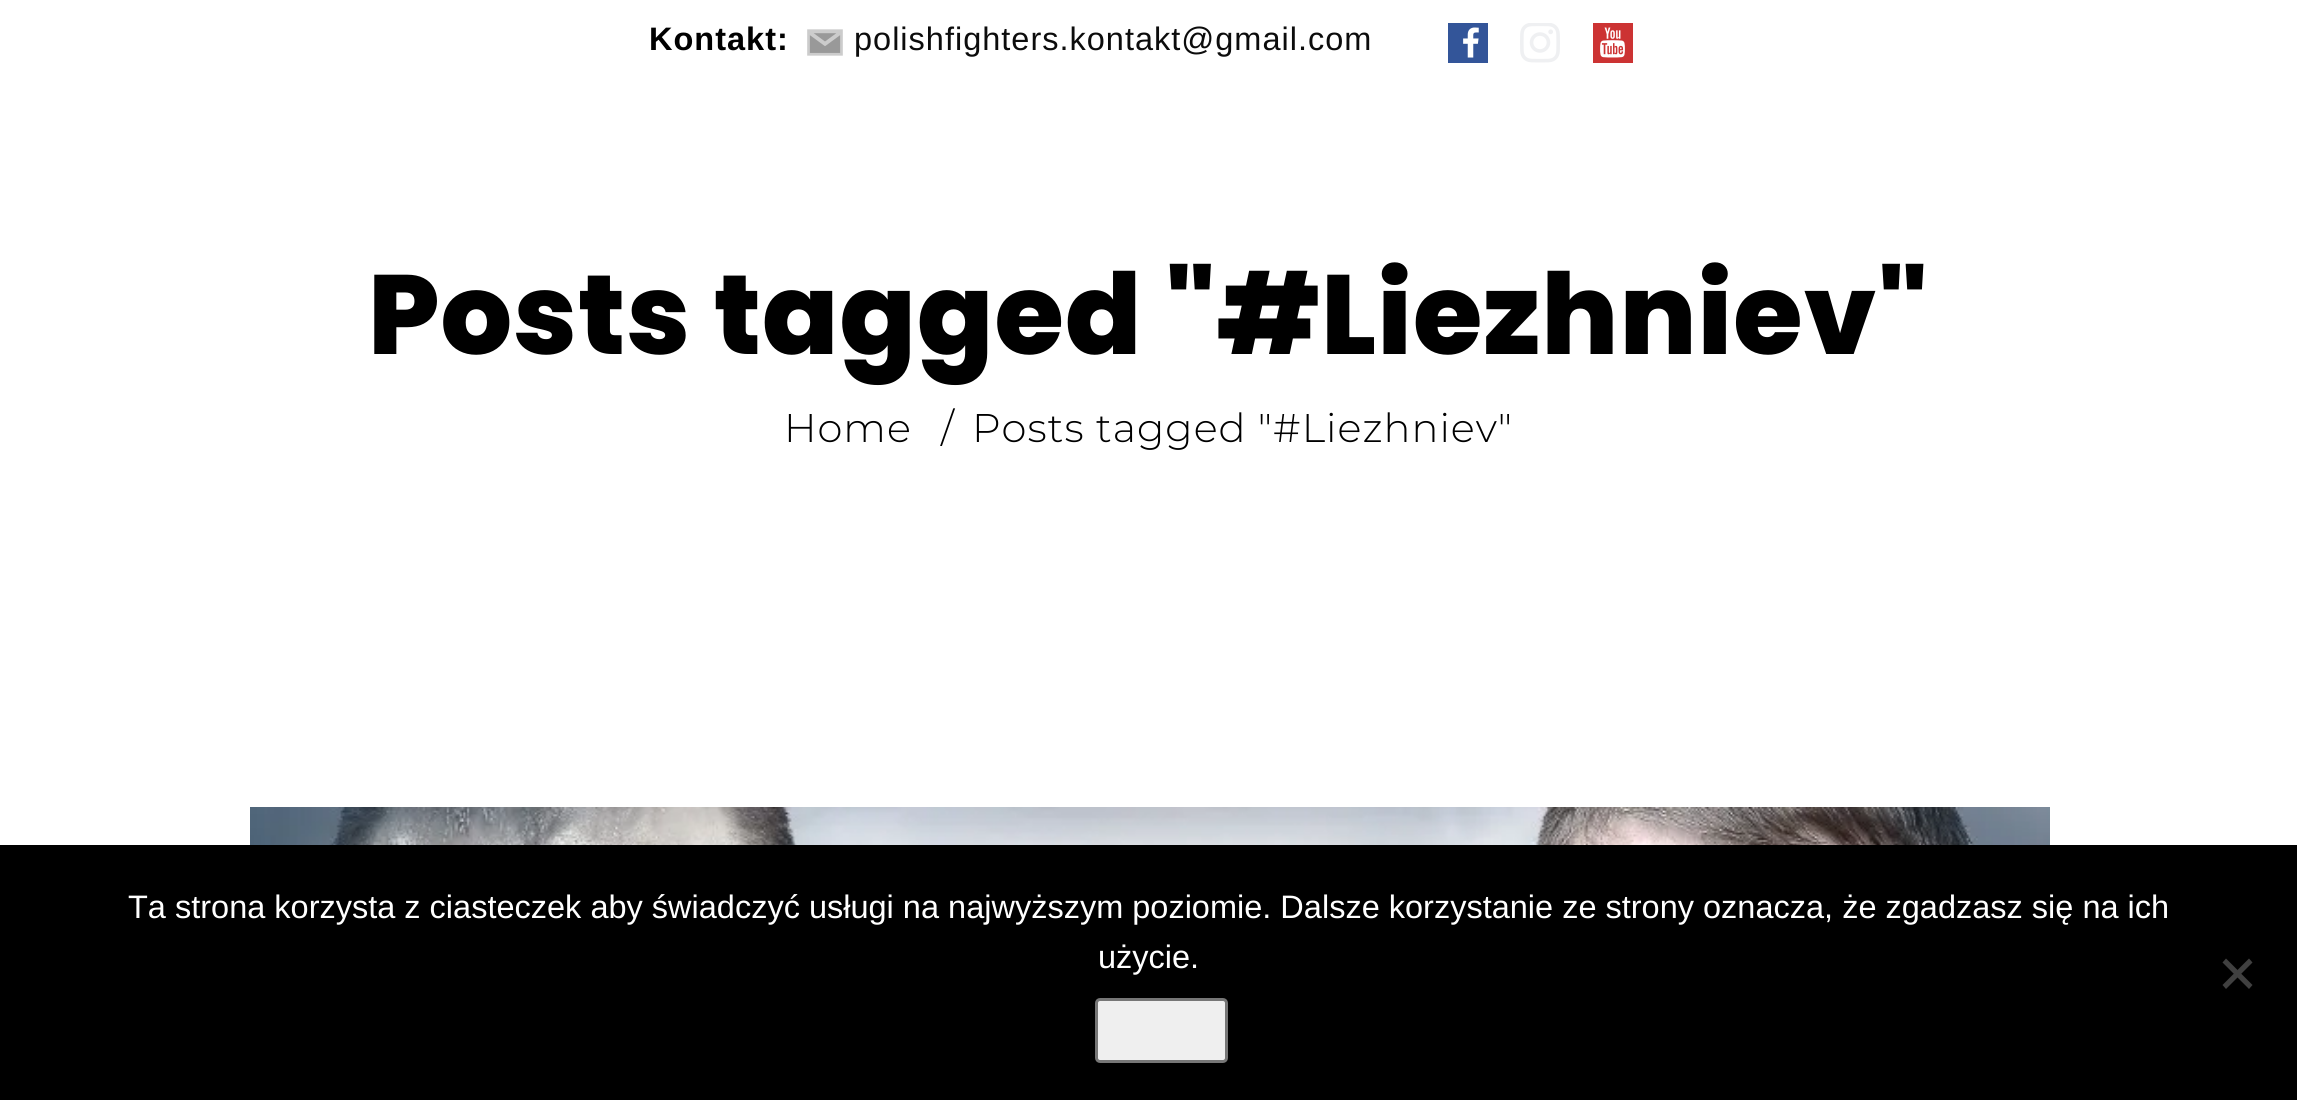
import math
import cairo


def use_color(cr, r, g, b):
  cr.set_source_rgb(r / 255, g / 255, b / 255)

def text(cr, x, y, s, family, size, color, bold=False, italic=False):
  cr.select_font_face(family, cairo.FONT_SLANT_ITALIC if italic else cairo.FONT_SLANT_NORMAL, cairo.FONT_WEIGHT_BOLD if bold else cairo.FONT_WEIGHT_NORMAL)
  cr.set_font_size(size)
  use_color(cr, *color)
  cr.move_to(x, y)
  cr.show_text(s)

def spaced_text(cr, x, y, s, letter, word):
  cr.move_to(x, y)
  for ch in s:
    cr.show_text(ch)
    cr.rel_move_to(letter + word * (ch == ' '), 0)

def box(cr, x, y, w, h, *color):
  use_color(cr, *color)
  cr.rectangle(x, y, w, h)
  cr.fill()

def round_rect(cr, x, y, w, h, r):
  cr.new_sub_path()
  for i, (u, v) in enumerate([(x + w - r, y + h - r), (x + r, y + h - r), (x + r, y + r), (x + w - r, y + r)]):
    cr.arc(u, v, r, i * math.pi / 2, (i + 1) * math.pi / 2)
  cr.close_path()

def picture(cr, path, x, y, w, h):
  cr.save()
  cr.set_source_surface(cairo.ImageSurface.create_from_png(path), x, y)
  cr.rectangle(x, y, w, h)
  cr.fill()
  cr.restore()

def draw(cr):
  use_color(cr, 255, 255, 255)
  cr.paint()
  picture(cr, "img_01.png", 807, 29, 36, 27)
  picture(cr, "img_02.png", 1448, 23, 40, 40)
  picture(cr, "img_03.png", 1520, 23, 40, 40)
  picture(cr, "img_04.png", 1593, 23, 40, 40)
  picture(cr, "img_05.png", 250, 807, 1800, 38)
  box(cr, 0, 845, 2297, 255, 0, 0, 0)
  use_color(cr, 64, 64, 64)
  cr.new_path()
  cr.move_to(2249, 958.5)
  cr.line_to(2252.5, 962.5)
  cr.line_to(2226, 989)
  cr.line_to(2222.5, 985)
  cr.close_path()
  cr.fill()
  cr.new_path()
  cr.move_to(2222.5, 962.5)
  cr.line_to(2226, 958.5)
  cr.line_to(2252.5, 985)
  cr.line_to(2249, 989)
  cr.close_path()
  cr.fill()
  use_color(cr, 239, 239, 239)
  round_rect(cr, 1096.5, 999.5, 130, 62, 3.5)
  cr.fill_preserve()
  use_color(cr, 118, 118, 118)
  cr.set_line_width(3)
  cr.stroke()
  cr.select_font_face("Liberation Sans", cairo.FONT_SLANT_NORMAL, cairo.FONT_WEIGHT_BOLD)
  cr.set_font_size(32.5)
  use_color(cr, 0, 0, 0)
  spaced_text(cr, 649, 50, "Kontakt:", 1, 0)
  cr.select_font_face("Liberation Sans")
  use_color(cr, 12, 12, 12)
  spaced_text(cr, 854, 50, "polishfighters.kontakt@gmail.com", 1, 0)
  cr.select_font_face("Poppins ExtraBold")
  cr.set_font_size(112.5)
  use_color(cr, 0, 0, 0)
  spaced_text(cr, 368, 354, "Posts tagged \"#Liezhniev\"", 1, 0)
  cr.select_font_face("Montserrat Light")
  cr.set_font_size(40)
  spaced_text(cr, 784, 442, "Home", 1, 0)
  spaced_text(cr, 941, 442, "/", 1, 0)
  spaced_text(cr, 972, 442, "Posts tagged \"#Liezhniev\"", 1, 0)
  text(cr, 128, 918, "Ta strona korzysta z ciasteczek aby świadczyć usługi na najwyższym poziomie. Dalsze korzystanie ze strony oznacza, że zgadzasz się na ich", "Liberation Sans", 32.5, (255, 255, 255))
  text(cr, 1098, 968, "użycie.", "Liberation Sans", 32.5, (255, 255, 255))


surface = cairo.ImageSurface(cairo.FORMAT_RGB24, 2297, 1100)
cr = cairo.Context(surface)
options = cairo.FontOptions()
options.set_hint_metrics(cairo.HINT_METRICS_OFF)
options.set_hint_style(cairo.HINT_STYLE_NONE)
cr.set_font_options(options)
cr.set_miter_limit(4)
draw(cr)
surface.write_to_png("out.png")
